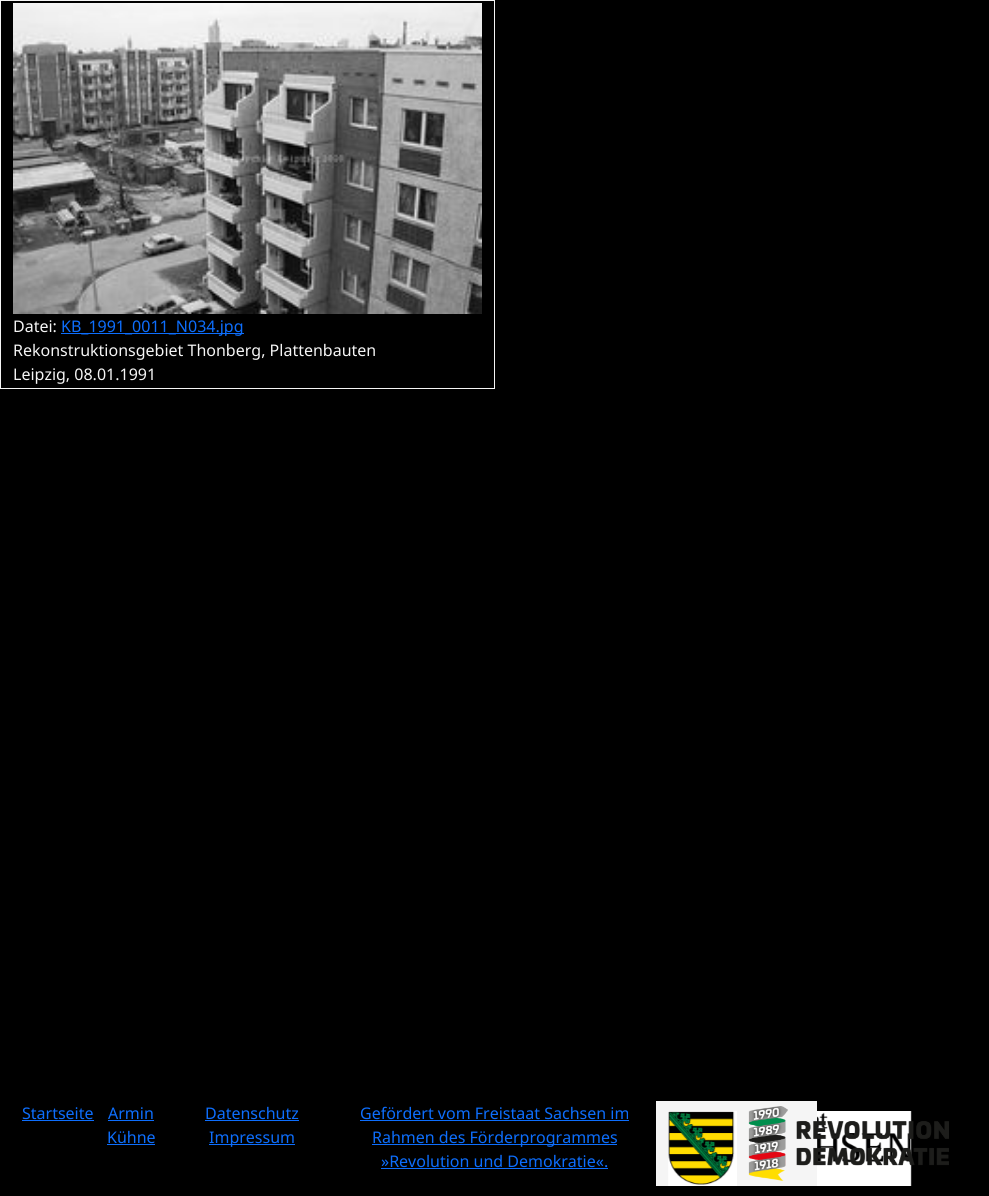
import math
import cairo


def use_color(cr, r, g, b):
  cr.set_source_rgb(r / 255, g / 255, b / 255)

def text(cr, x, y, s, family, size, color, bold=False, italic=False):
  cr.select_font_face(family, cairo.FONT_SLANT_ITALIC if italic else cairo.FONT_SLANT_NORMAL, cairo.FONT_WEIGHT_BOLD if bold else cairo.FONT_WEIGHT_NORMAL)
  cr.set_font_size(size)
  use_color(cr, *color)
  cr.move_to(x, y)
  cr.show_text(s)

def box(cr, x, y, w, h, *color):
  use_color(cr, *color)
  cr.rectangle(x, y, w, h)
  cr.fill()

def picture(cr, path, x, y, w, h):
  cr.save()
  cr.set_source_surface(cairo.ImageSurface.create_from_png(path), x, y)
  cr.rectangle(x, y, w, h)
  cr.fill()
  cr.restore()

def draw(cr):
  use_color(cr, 0, 0, 0)
  cr.paint()
  cr.rectangle(0.5, 0.5, 494, 388)
  use_color(cr, 245, 245, 245)
  cr.set_line_width(1)
  cr.stroke()
  picture(cr, "img_01.png", 13, 3, 469, 311)
  box(cr, 61, 333, 183, 1, 13, 110, 253)
  box(cr, 656, 1101, 81, 85, 245, 245, 245)
  picture(cr, "img_02.png", 668, 1111, 244, 75)
  box(cr, 22, 1120, 72, 1, 13, 110, 253)
  box(cr, 108, 1120, 46, 1, 13, 110, 253)
  box(cr, 107, 1144, 48, 1, 13, 110, 253)
  box(cr, 205, 1120, 94, 1, 13, 110, 253)
  box(cr, 209, 1144, 86, 1, 13, 110, 253)
  box(cr, 360, 1120, 269, 1, 13, 110, 253)
  box(cr, 372, 1144, 245, 1, 13, 110, 253)
  box(cr, 381, 1168, 227, 1, 13, 110, 253)
  box(cr, 737, 1101, 80, 85, 245, 245, 245)
  picture(cr, "img_03.png", 748, 1106, 201, 75)
  text(cr, 13, 332, "Datei:", "Noto Sans", 16, (245, 245, 245))
  text(cr, 61, 332, "KB_1991_0011_N034.jpg", "Noto Sans", 16, (13, 110, 253))
  text(cr, 13, 356, "Rekonstruktionsgebiet Thonberg, Plattenbauten", "Noto Sans", 16, (245, 245, 245))
  text(cr, 13, 380, "Leipzig, 08.01.1991", "Noto Sans", 16, (245, 245, 245))
  text(cr, 22, 1119, "Startseite", "Noto Sans", 16, (13, 110, 253))
  text(cr, 108, 1119, "Armin", "Noto Sans", 16, (13, 110, 253))
  text(cr, 107, 1143, "Kühne", "Noto Sans", 16, (13, 110, 253))
  text(cr, 205, 1119, "Datenschutz", "Noto Sans", 16, (13, 110, 253))
  text(cr, 209, 1143, "Impressum", "Noto Sans", 16, (13, 110, 253))
  text(cr, 360, 1119, "Gefördert vom Freistaat Sachsen im", "Noto Sans", 16, (13, 110, 253))
  text(cr, 372, 1143, "Rahmen des Förderprogrammes", "Noto Sans", 16, (13, 110, 253))
  text(cr, 381, 1167, "»Revolution und Demokratie«.", "Noto Sans", 16, (13, 110, 253))


surface = cairo.ImageSurface(cairo.FORMAT_RGB24, 989, 1196)
cr = cairo.Context(surface)
options = cairo.FontOptions()
options.set_hint_metrics(cairo.HINT_METRICS_OFF)
options.set_hint_style(cairo.HINT_STYLE_NONE)
cr.set_font_options(options)
cr.set_miter_limit(4)
draw(cr)
surface.write_to_png("out.png")
